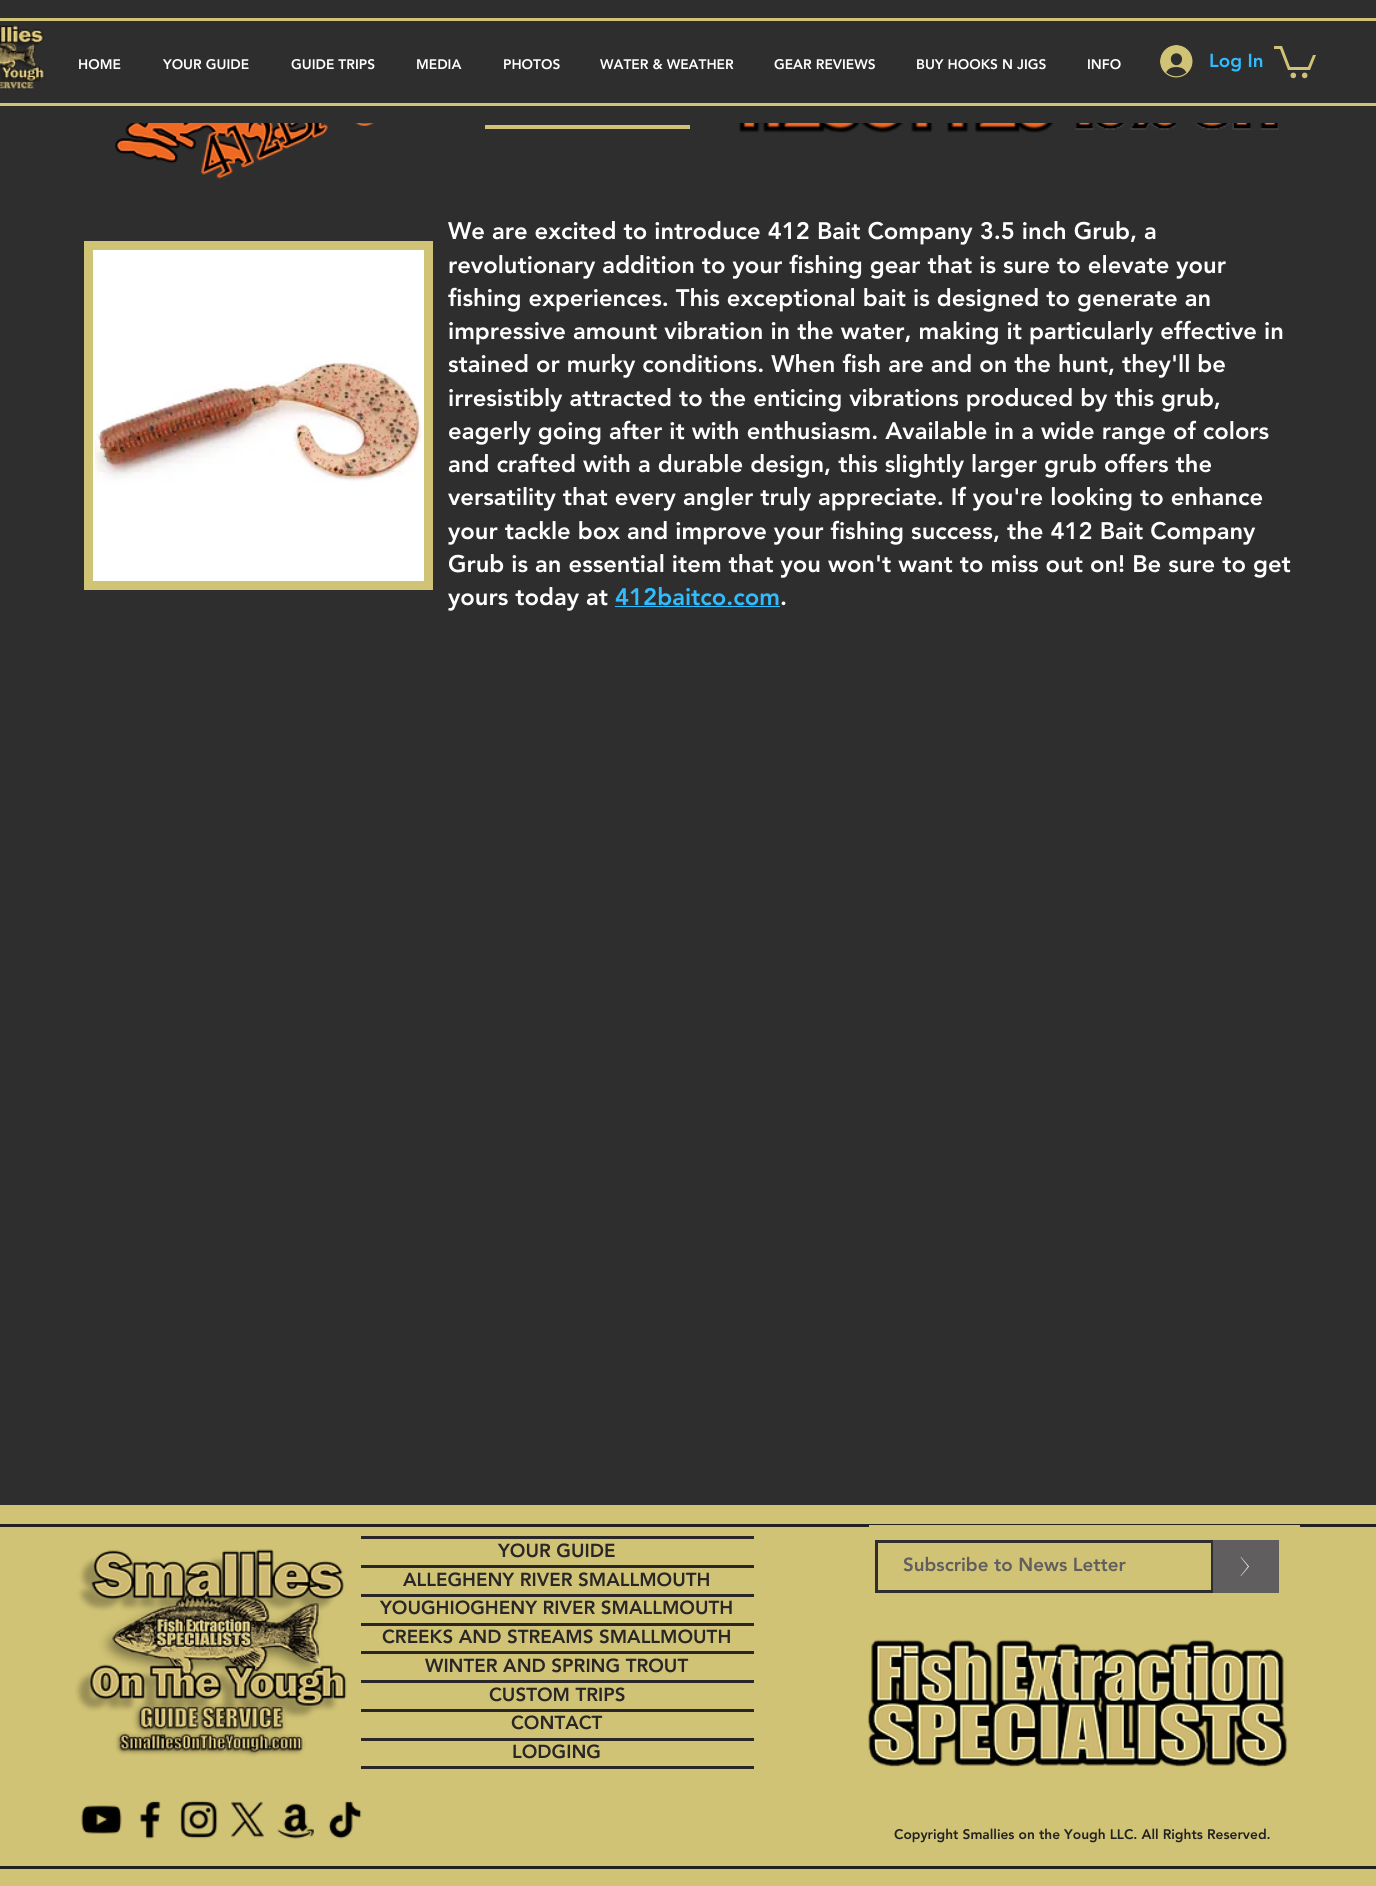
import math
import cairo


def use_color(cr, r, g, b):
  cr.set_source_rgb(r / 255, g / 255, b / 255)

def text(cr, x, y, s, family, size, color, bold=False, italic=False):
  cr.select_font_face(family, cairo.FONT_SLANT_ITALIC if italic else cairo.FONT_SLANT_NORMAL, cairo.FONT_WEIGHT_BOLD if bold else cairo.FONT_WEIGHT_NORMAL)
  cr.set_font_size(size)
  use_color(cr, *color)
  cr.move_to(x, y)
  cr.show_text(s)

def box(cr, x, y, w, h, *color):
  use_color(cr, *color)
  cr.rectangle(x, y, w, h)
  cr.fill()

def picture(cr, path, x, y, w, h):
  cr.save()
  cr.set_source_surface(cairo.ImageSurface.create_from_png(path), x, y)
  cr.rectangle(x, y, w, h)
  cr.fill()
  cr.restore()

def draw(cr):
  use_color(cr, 47, 46, 46)
  cr.paint()
  box(cr, 0, 18, 1376, 3, 209, 195, 117)
  box(cr, 0, 103, 1376, 3, 209, 195, 117)
  picture(cr, "img_01.png", 0, 25, 45, 65)
  picture(cr, "img_02.png", 1160, 45, 33, 33)
  cr.new_path()
  cr.move_to(1316, 55)
  cr.line_to(1310, 70)
  cr.line_to(1288, 70)
  cr.line_to(1280, 49)
  cr.line_to(1274, 49)
  cr.line_to(1274, 46)
  cr.line_to(1282, 46)
  cr.line_to(1290, 67)
  cr.line_to(1308, 67)
  cr.line_to(1313, 55)
  cr.fill()
  cr.arc(1304.7, 75.4, 2.8, 0, 2 * math.pi)
  cr.fill()
  cr.arc(1293.3, 75.4, 2.8, 0, 2 * math.pi)
  cr.fill()
  picture(cr, "img_03.png", 115, 123, 259, 56)
  box(cr, 485, 125, 205, 4, 209, 195, 117)
  picture(cr, "img_04.png", 718, 123, 336, 10)
  picture(cr, "img_05.png", 1074, 123, 206, 7)
  use_color(cr, 255, 255, 255)
  cr.rectangle(88.5, 245.5, 340, 340)
  cr.fill_preserve()
  use_color(cr, 209, 195, 117)
  cr.set_line_width(9)
  cr.stroke()
  picture(cr, "img_06.png", 95, 362, 326, 121)
  box(cr, 615, 606, 165, 1, 48, 189, 255)
  box(cr, 0, 1505, 1376, 381, 209, 195, 117)
  box(cr, 0, 1524, 1376, 3, 33, 33, 33)
  box(cr, 0, 1866, 1376, 3, 33, 33, 33)
  picture(cr, "img_07.png", 75, 1549, 272, 208)
  box(cr, 361, 1536, 393, 3, 40, 38, 38)
  box(cr, 361, 1766, 393, 3, 40, 38, 38)
  box(cr, 361, 1565, 393, 3, 40, 38, 38)
  box(cr, 361, 1594, 393, 3, 40, 38, 38)
  box(cr, 361, 1623, 393, 3, 40, 38, 38)
  box(cr, 361, 1651, 393, 3, 40, 38, 38)
  box(cr, 361, 1680, 393, 3, 40, 38, 38)
  box(cr, 361, 1709, 393, 3, 40, 38, 38)
  box(cr, 361, 1738, 393, 3, 40, 38, 38)
  box(cr, 869, 1525, 431, 2, 209, 195, 117)
  cr.rectangle(876.5, 1541.5, 336, 50)
  use_color(cr, 47, 46, 46)
  cr.set_line_width(3)
  cr.stroke()
  box(cr, 1213, 1540, 66, 53, 96, 94, 94)
  use_color(cr, 255, 255, 255)
  cr.new_path()
  cr.move_to(1249, 1566.5)
  cr.line_to(1241, 1576)
  cr.line_to(1240.5, 1576)
  cr.line_to(1248, 1566.5)
  cr.line_to(1240.5, 1557)
  cr.line_to(1241, 1557)
  cr.close_path()
  cr.fill()
  picture(cr, "img_08.png", 867, 1639, 421, 128)
  picture(cr, "img_09.png", 81, 1805, 41, 29)
  picture(cr, "img_10.png", 139, 1800, 22, 39)
  picture(cr, "img_11.png", 180, 1800, 38, 39)
  picture(cr, "img_12.png", 231, 1801, 33, 37)
  picture(cr, "img_13.png", 277, 1803, 37, 36)
  picture(cr, "img_14.png", 328, 1801, 34, 38)
  text(cr, 78, 69, "HOME", "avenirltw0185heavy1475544 Black", 13.75, (255, 255, 255))
  text(cr, 163, 69, "YOUR GUIDE", "avenirltw0185heavy1475544 Black", 13.75, (255, 255, 255))
  text(cr, 291, 69, "GUIDE TRIPS", "avenirltw0185heavy1475544 Black", 13.75, (255, 255, 255))
  text(cr, 416, 69, "MEDIA", "avenirltw0185heavy1475544 Black", 13.75, (255, 255, 255))
  text(cr, 503, 69, "PHOTOS", "avenirltw0185heavy1475544 Black", 13.75, (255, 255, 255))
  text(cr, 600, 69, "WATER & WEATHER", "avenirltw0185heavy1475544 Black", 13.75, (255, 255, 255))
  text(cr, 774, 69, "GEAR REVIEWS", "avenirltw0185heavy1475544 Black", 13.75, (255, 255, 255))
  text(cr, 916, 69, "BUY HOOKS N JIGS", "avenirltw0185heavy1475544 Black", 13.75, (255, 255, 255))
  text(cr, 1087, 69, "INFO", "avenirltw0185heavy1475544 Black", 13.75, (255, 255, 255))
  text(cr, 1209, 67, "Log In", "avenirltw0185heavy1475544 Black", 18.75, (48, 189, 255))
  text(cr, 448, 239, "We are excited to introduce 412 Bait Company 3.5 inch Grub, a", "avenirltw0185heavy1475544 Black", 23.75, (255, 255, 255))
  text(cr, 448, 273, "revolutionary addition to your fishing gear that is sure to elevate your", "avenirltw0185heavy1475544 Black", 23.75, (255, 255, 255))
  text(cr, 448, 306, "fishing experiences. This exceptional bait is designed to generate an", "avenirltw0185heavy1475544 Black", 23.75, (255, 255, 255))
  text(cr, 448, 339, "impressive amount vibration in the water, making it particularly effective in", "avenirltw0185heavy1475544 Black", 23.75, (255, 255, 255))
  text(cr, 448, 372, "stained or murky conditions. When fish are and on the hunt, they'll be", "avenirltw0185heavy1475544 Black", 23.75, (255, 255, 255))
  text(cr, 448, 406, "irresistibly attracted to the enticing vibrations produced by this grub,", "avenirltw0185heavy1475544 Black", 23.75, (255, 255, 255))
  text(cr, 448, 439, "eagerly going after it with enthusiasm. Available in a wide range of colors", "avenirltw0185heavy1475544 Black", 23.75, (255, 255, 255))
  text(cr, 448, 472, "and crafted with a durable design, this slightly larger grub offers the", "avenirltw0185heavy1475544 Black", 23.75, (255, 255, 255))
  text(cr, 448, 505, "versatility that every angler truly appreciate. If you're looking to enhance", "avenirltw0185heavy1475544 Black", 23.75, (255, 255, 255))
  text(cr, 448, 539, "your tackle box and improve your fishing success, the 412 Bait Company", "avenirltw0185heavy1475544 Black", 23.75, (255, 255, 255))
  text(cr, 448, 572, "Grub is an essential item that you won't want to miss out on! Be sure to get", "avenirltw0185heavy1475544 Black", 23.75, (255, 255, 255))
  text(cr, 448, 605, "yours today at", "avenirltw0185heavy1475544 Black", 23.75, (255, 255, 255))
  text(cr, 615, 605, "412baitco.com", "avenirltw0185heavy1475544 Black", 23.75, (48, 189, 255))
  text(cr, 780, 605, ".", "avenirltw0185heavy1475544 Black", 23.75, (255, 255, 255))
  text(cr, 498, 1557, "YOUR GUIDE", "avenirltw0185heavy1475544 Black", 18.75, (40, 38, 38))
  text(cr, 403, 1586, "ALLEGHENY RIVER SMALLMOUTH", "avenirltw0185heavy1475544 Black", 18.75, (40, 38, 38))
  text(cr, 380, 1614, "YOUGHIOGHENY RIVER SMALLMOUTH", "avenirltw0185heavy1475544 Black", 18.75, (40, 38, 38))
  text(cr, 382, 1643, "CREEKS AND STREAMS SMALLMOUTH", "avenirltw0185heavy1475544 Black", 18.75, (40, 38, 38))
  text(cr, 425, 1672, "WINTER AND SPRING TROUT", "avenirltw0185heavy1475544 Black", 18.75, (40, 38, 38))
  text(cr, 489, 1701, "CUSTOM TRIPS", "avenirltw0185heavy1475544 Black", 18.75, (40, 38, 38))
  text(cr, 511, 1729, "CONTACT", "avenirltw0185heavy1475544 Black", 18.75, (40, 38, 38))
  text(cr, 512, 1758, "LODGING", "avenirltw0185heavy1475544 Black", 18.75, (40, 38, 38))
  text(cr, 903, 1571, "Subscribe to News Letter", "avenirltw0185heavy1475544 Black", 18.75, (96, 94, 94))
  text(cr, 894, 1839, "Copyright Smallies on the Yough LLC. All Rights Reserved.", "avenirltw0185heavy1475544 Black", 13.75, (33, 33, 33))


surface = cairo.ImageSurface(cairo.FORMAT_RGB24, 1376, 1886)
cr = cairo.Context(surface)
options = cairo.FontOptions()
options.set_hint_metrics(cairo.HINT_METRICS_OFF)
options.set_hint_style(cairo.HINT_STYLE_NONE)
cr.set_font_options(options)
cr.set_miter_limit(4)
draw(cr)
surface.write_to_png("out.png")
